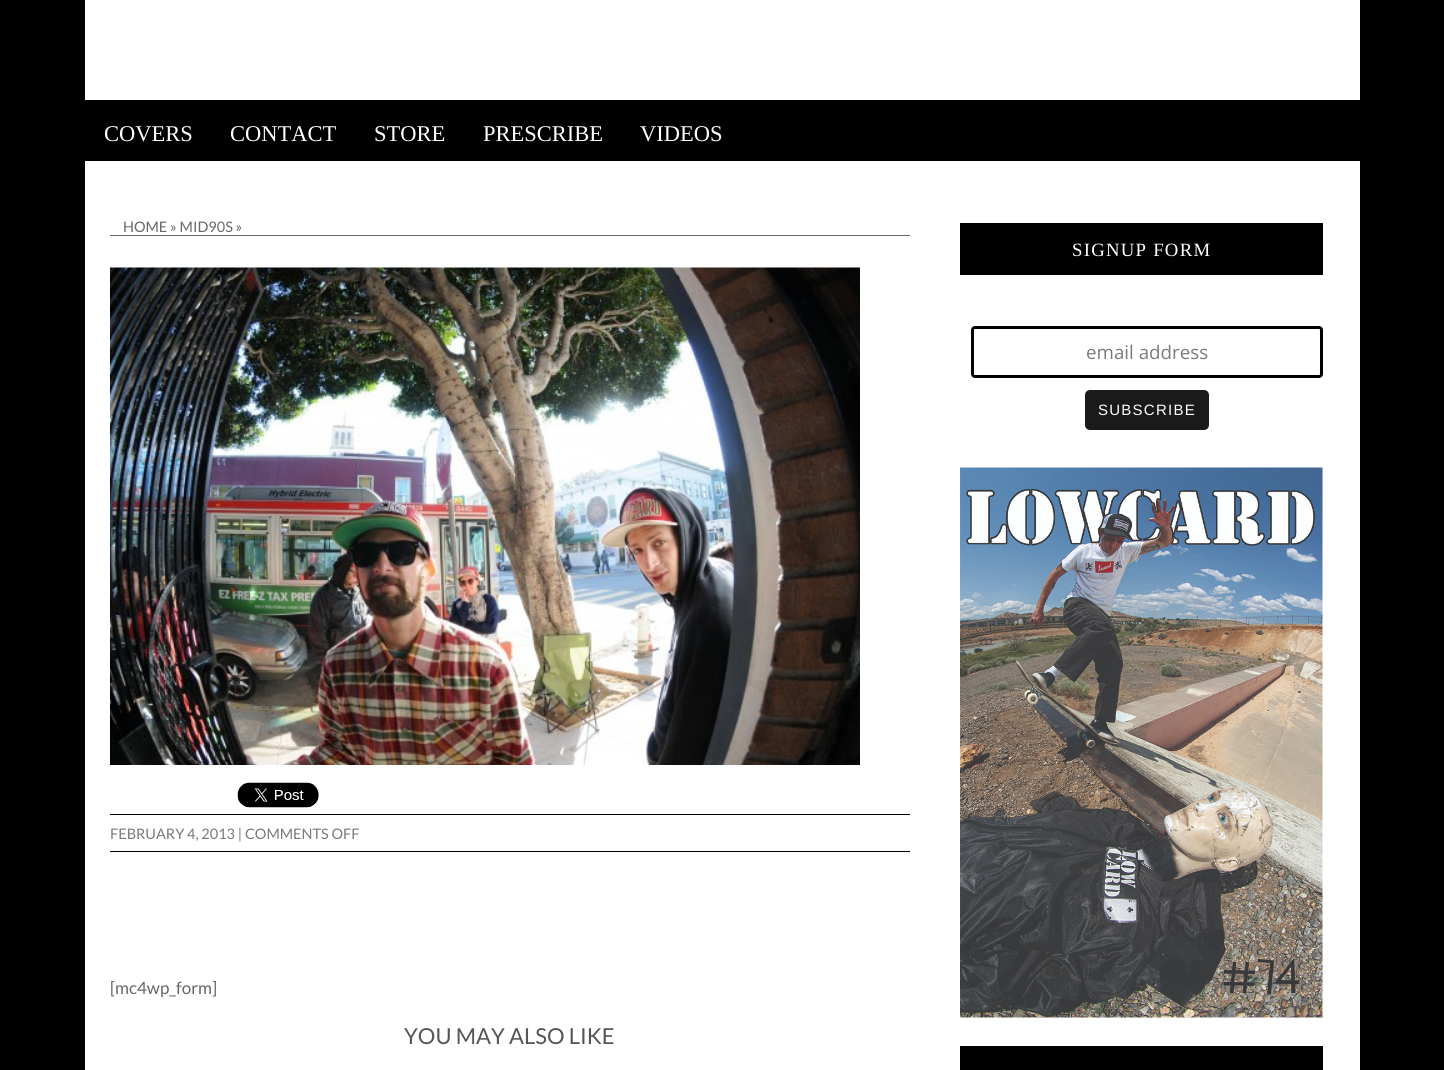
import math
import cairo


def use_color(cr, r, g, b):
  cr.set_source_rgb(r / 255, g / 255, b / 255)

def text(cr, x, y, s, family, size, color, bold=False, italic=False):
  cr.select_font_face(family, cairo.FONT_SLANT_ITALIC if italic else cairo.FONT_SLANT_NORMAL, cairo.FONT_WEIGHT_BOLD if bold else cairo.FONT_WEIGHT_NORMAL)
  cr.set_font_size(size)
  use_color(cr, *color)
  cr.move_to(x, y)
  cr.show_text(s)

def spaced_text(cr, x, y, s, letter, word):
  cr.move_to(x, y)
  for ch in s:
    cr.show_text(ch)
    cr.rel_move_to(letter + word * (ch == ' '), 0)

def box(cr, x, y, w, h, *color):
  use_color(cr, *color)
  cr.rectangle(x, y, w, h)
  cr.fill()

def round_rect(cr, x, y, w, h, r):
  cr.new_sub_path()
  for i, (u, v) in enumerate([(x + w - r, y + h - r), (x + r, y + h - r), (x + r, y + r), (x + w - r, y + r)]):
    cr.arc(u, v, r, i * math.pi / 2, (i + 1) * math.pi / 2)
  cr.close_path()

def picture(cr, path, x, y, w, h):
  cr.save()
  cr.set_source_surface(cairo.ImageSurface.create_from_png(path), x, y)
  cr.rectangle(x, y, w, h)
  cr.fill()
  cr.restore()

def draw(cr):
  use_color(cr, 0, 0, 0)
  cr.paint()
  box(cr, 85, 0, 1275, 1070, 255, 255, 255)
  box(cr, 85, 100, 1275, 61, 0, 0, 0)
  box(cr, 960, 223, 363, 52, 0, 0, 0)
  round_rect(cr, 972.5, 327.5, 349, 49, 2.5)
  cr.set_line_width(3)
  cr.stroke()
  use_color(cr, 26, 26, 26)
  round_rect(cr, 1085, 390, 124, 40, 5)
  cr.fill()
  picture(cr, "img_01.png", 960, 467, 363, 551)
  box(cr, 960, 1046, 363, 24, 0, 0, 0)
  box(cr, 110, 235, 800, 1, 102, 102, 102)
  picture(cr, "img_02.png", 110, 267, 750, 498)
  picture(cr, "img_03.png", 237, 782, 82, 26)
  box(cr, 110, 814, 800, 1, 0, 0, 0)
  box(cr, 110, 851, 800, 1, 0, 0, 0)
  text(cr, 104, 141, "COVERS", "Liberation Serif", 22.5, (255, 255, 255))
  text(cr, 230, 141, "CONTACT", "Liberation Serif", 22.5, (255, 255, 255))
  text(cr, 374, 141, "STORE", "Liberation Serif", 22.5, (255, 255, 255))
  text(cr, 483, 141, "PRESCRIBE", "Liberation Serif", 22.5, (255, 255, 255))
  text(cr, 640, 141, "VIDEOS", "Liberation Serif", 22.5, (255, 255, 255))
  text(cr, 123, 232, "HOME » MID90S »", "Lato", 14.5, (102, 102, 102))
  cr.select_font_face("Liberation Serif")
  cr.set_font_size(18.75)
  use_color(cr, 255, 255, 255)
  spaced_text(cr, 1072, 256, "SIGNUP FORM", 1.25, 0)
  text(cr, 1086, 359, "email address", "Open Sans", 18.75, (122, 122, 122))
  cr.select_font_face("Liberation Sans")
  cr.set_font_size(15)
  use_color(cr, 255, 255, 255)
  spaced_text(cr, 1098, 415, "SUBSCRIBE", 1.25, 0)
  text(cr, 110, 839, "FEBRUARY 4, 2013 | COMMENTS OFF", "Lato", 14.5, (122, 122, 122))
  text(cr, 110, 994, "[mc4wp_form]", "Lato", 17, (102, 102, 102))
  text(cr, 404, 1044, "YOU MAY ALSO LIKE", "Lato", 22, (85, 85, 85))


surface = cairo.ImageSurface(cairo.FORMAT_RGB24, 1444, 1070)
cr = cairo.Context(surface)
options = cairo.FontOptions()
options.set_hint_metrics(cairo.HINT_METRICS_OFF)
options.set_hint_style(cairo.HINT_STYLE_NONE)
cr.set_font_options(options)
cr.set_miter_limit(4)
draw(cr)
surface.write_to_png("out.png")
